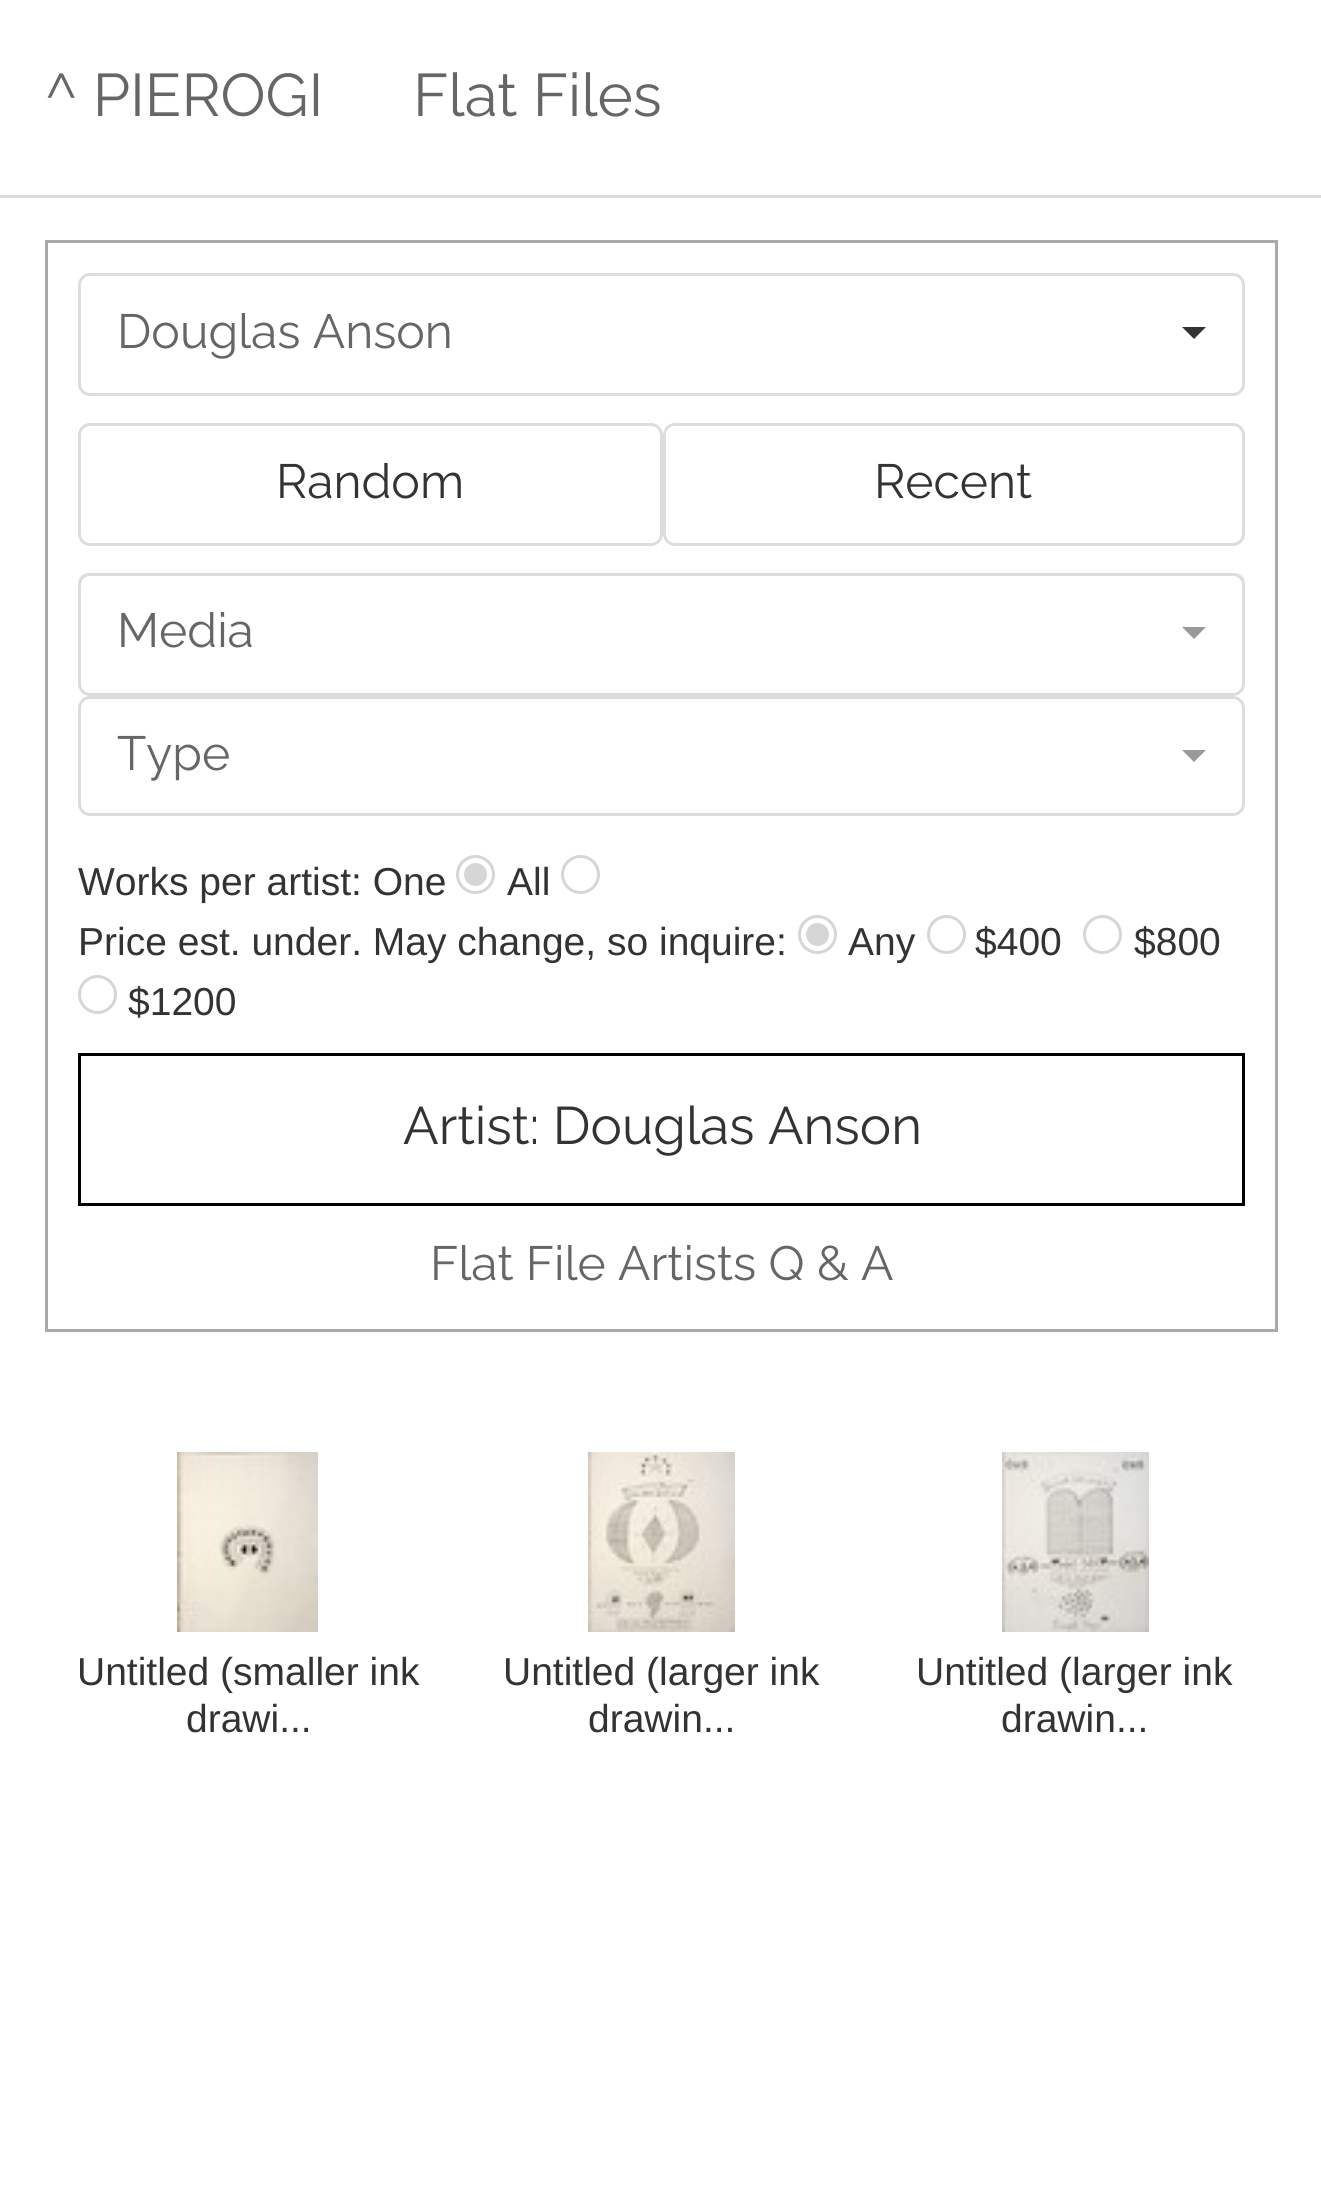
import math
import cairo


def use_color(cr, r, g, b):
  cr.set_source_rgb(r / 255, g / 255, b / 255)

def text(cr, x, y, s, family, size, color, bold=False, italic=False):
  cr.select_font_face(family, cairo.FONT_SLANT_ITALIC if italic else cairo.FONT_SLANT_NORMAL, cairo.FONT_WEIGHT_BOLD if bold else cairo.FONT_WEIGHT_NORMAL)
  cr.set_font_size(size)
  use_color(cr, *color)
  cr.move_to(x, y)
  cr.show_text(s)

def box(cr, x, y, w, h, *color):
  use_color(cr, *color)
  cr.rectangle(x, y, w, h)
  cr.fill()

def round_rect(cr, x, y, w, h, r):
  cr.new_sub_path()
  for i, (u, v) in enumerate([(x + w - r, y + h - r), (x + r, y + h - r), (x + r, y + r), (x + w - r, y + r)]):
    cr.arc(u, v, r, i * math.pi / 2, (i + 1) * math.pi / 2)
  cr.close_path()

def picture(cr, path, x, y, w, h):
  cr.save()
  cr.set_source_surface(cairo.ImageSurface.create_from_png(path), x, y)
  cr.rectangle(x, y, w, h)
  cr.fill()
  cr.restore()

def draw(cr):
  use_color(cr, 255, 255, 255)
  cr.paint()
  box(cr, 0, 195, 1321, 3, 221, 221, 221)
  cr.rectangle(46.5, 241.5, 1230, 1089)
  use_color(cr, 170, 170, 170)
  cr.set_line_width(3)
  cr.stroke()
  round_rect(cr, 79.5, 274.5, 1164, 120, 10.5)
  use_color(cr, 221, 221, 221)
  cr.stroke()
  use_color(cr, 51, 51, 51)
  cr.new_path()
  cr.move_to(1182, 327)
  cr.line_to(1206, 327)
  cr.line_to(1194, 339)
  cr.close_path()
  cr.fill()
  round_rect(cr, 79.5, 424.5, 582, 120, 10.5)
  use_color(cr, 221, 221, 221)
  cr.stroke()
  round_rect(cr, 664.5, 424.5, 579, 120, 10.5)
  cr.stroke()
  use_color(cr, 236, 236, 236)
  cr.new_path()
  cr.move_to(87, 576)
  cr.line_to(1236, 576)
  cr.curve_to(1241, 576, 1245, 580, 1245, 585)
  cr.line_to(1245, 582)
  cr.curve_to(1245, 577, 1241, 573, 1236, 573)
  cr.line_to(87, 573)
  cr.curve_to(82, 573, 78, 577, 78, 582)
  cr.line_to(78, 585)
  cr.curve_to(78, 580, 82, 576, 87, 576)
  cr.close_path()
  cr.fill()
  use_color(cr, 255, 255, 255)
  round_rect(cr, 79.5, 574.5, 1164, 120, 10.5)
  cr.fill_preserve()
  use_color(cr, 221, 221, 221)
  cr.stroke()
  use_color(cr, 153, 153, 153)
  cr.new_path()
  cr.move_to(1182, 627)
  cr.line_to(1206, 627)
  cr.line_to(1194, 639)
  cr.close_path()
  cr.fill()
  round_rect(cr, 79.5, 697.5, 1164, 117, 10.5)
  use_color(cr, 221, 221, 221)
  cr.stroke()
  use_color(cr, 153, 153, 153)
  cr.new_path()
  cr.move_to(1182, 750)
  cr.line_to(1206, 750)
  cr.line_to(1194, 762)
  cr.close_path()
  cr.fill()
  cr.arc(475.5, 874.5, 18, 0, 2 * math.pi)
  use_color(cr, 214, 214, 214)
  cr.stroke()
  cr.arc(475.5, 874.5, 11.5, 0, 2 * math.pi)
  cr.fill()
  cr.arc(580.5, 874.5, 18, 0, 2 * math.pi)
  cr.stroke()
  cr.arc(817.5, 934.5, 18, 0, 2 * math.pi)
  cr.stroke()
  cr.arc(817.5, 934.5, 11.5, 0, 2 * math.pi)
  cr.fill()
  cr.arc(946.5, 934.5, 18, 0, 2 * math.pi)
  cr.stroke()
  cr.arc(1102.5, 934.5, 18, 0, 2 * math.pi)
  cr.stroke()
  cr.arc(97.5, 994.5, 18, 0, 2 * math.pi)
  cr.stroke()
  cr.rectangle(79.5, 1054.5, 1164, 150)
  use_color(cr, 0, 0, 0)
  cr.stroke()
  picture(cr, "img_01.png", 177, 1452, 141, 180)
  picture(cr, "img_02.png", 588, 1452, 147, 180)
  picture(cr, "img_03.png", 1002, 1452, 147, 180)
  text(cr, 45, 116, "^ PIEROGI", "Raleway", 60, (102, 102, 102))
  text(cr, 413, 116, "Flat Files", "Raleway", 60, (102, 102, 102))
  text(cr, 117, 348, "Douglas Anson", "Raleway", 48, (102, 102, 102))
  text(cr, 276, 498, "Random", "Raleway", 48, (51, 51, 51))
  text(cr, 874, 498, "Recent", "Raleway", 48, (51, 51, 51))
  text(cr, 117, 647, "Media", "Raleway", 48, (102, 102, 102))
  text(cr, 117, 770, "Type", "Raleway", 48, (102, 102, 102))
  text(cr, 78, 895, "Works per artist: One", "Liberation Sans", 39, (51, 51, 51))
  text(cr, 507, 895, "All", "Liberation Sans", 39, (51, 51, 51))
  text(cr, 78, 955, "Price est. under. May change, so inquire:", "Liberation Sans", 39, (51, 51, 51))
  text(cr, 848, 955, "Any", "Liberation Sans", 39, (51, 51, 51))
  text(cr, 975, 955, "$400", "Liberation Sans", 39, (51, 51, 51))
  text(cr, 1134, 955, "$800", "Liberation Sans", 39, (51, 51, 51))
  text(cr, 128, 1015, "$1200", "Liberation Sans", 39, (51, 51, 51))
  text(cr, 403, 1144, "Artist: Douglas Anson", "Raleway", 52.75, (51, 51, 51))
  text(cr, 430, 1280, "Flat File Artists Q & A", "Raleway", 48, (102, 102, 102))
  text(cr, 77, 1685, "Untitled (smaller ink", "Liberation Sans", 39, (51, 51, 51))
  text(cr, 186, 1732, "drawi...", "Liberation Sans", 39, (51, 51, 51))
  text(cr, 503, 1685, "Untitled (larger ink", "Liberation Sans", 39, (51, 51, 51))
  text(cr, 588, 1732, "drawin...", "Liberation Sans", 39, (51, 51, 51))
  text(cr, 916, 1685, "Untitled (larger ink", "Liberation Sans", 39, (51, 51, 51))
  text(cr, 1001, 1732, "drawin...", "Liberation Sans", 39, (51, 51, 51))


surface = cairo.ImageSurface(cairo.FORMAT_RGB24, 1321, 2191)
cr = cairo.Context(surface)
options = cairo.FontOptions()
options.set_hint_metrics(cairo.HINT_METRICS_OFF)
options.set_hint_style(cairo.HINT_STYLE_NONE)
cr.set_font_options(options)
cr.set_miter_limit(4)
draw(cr)
surface.write_to_png("out.png")
